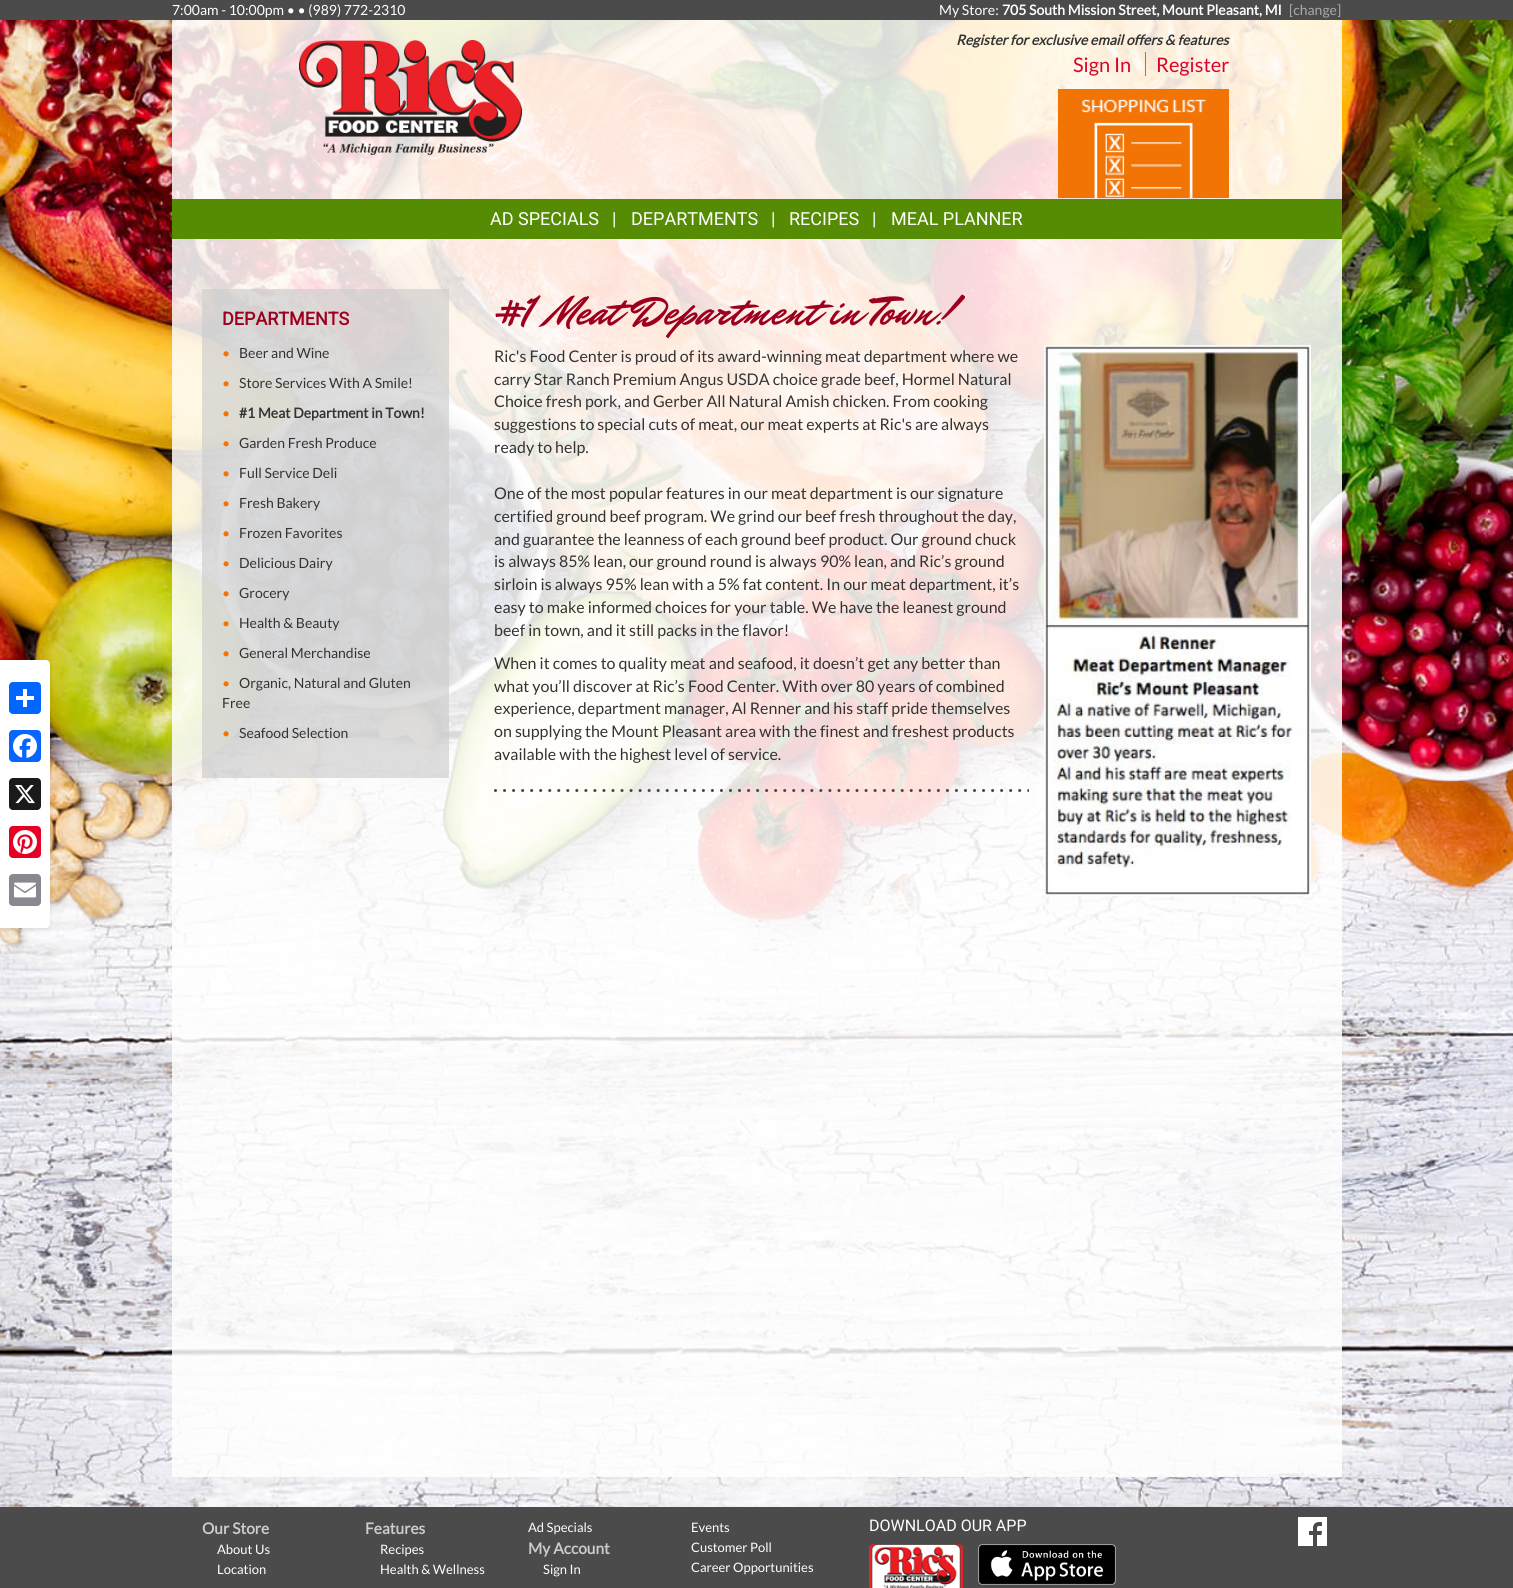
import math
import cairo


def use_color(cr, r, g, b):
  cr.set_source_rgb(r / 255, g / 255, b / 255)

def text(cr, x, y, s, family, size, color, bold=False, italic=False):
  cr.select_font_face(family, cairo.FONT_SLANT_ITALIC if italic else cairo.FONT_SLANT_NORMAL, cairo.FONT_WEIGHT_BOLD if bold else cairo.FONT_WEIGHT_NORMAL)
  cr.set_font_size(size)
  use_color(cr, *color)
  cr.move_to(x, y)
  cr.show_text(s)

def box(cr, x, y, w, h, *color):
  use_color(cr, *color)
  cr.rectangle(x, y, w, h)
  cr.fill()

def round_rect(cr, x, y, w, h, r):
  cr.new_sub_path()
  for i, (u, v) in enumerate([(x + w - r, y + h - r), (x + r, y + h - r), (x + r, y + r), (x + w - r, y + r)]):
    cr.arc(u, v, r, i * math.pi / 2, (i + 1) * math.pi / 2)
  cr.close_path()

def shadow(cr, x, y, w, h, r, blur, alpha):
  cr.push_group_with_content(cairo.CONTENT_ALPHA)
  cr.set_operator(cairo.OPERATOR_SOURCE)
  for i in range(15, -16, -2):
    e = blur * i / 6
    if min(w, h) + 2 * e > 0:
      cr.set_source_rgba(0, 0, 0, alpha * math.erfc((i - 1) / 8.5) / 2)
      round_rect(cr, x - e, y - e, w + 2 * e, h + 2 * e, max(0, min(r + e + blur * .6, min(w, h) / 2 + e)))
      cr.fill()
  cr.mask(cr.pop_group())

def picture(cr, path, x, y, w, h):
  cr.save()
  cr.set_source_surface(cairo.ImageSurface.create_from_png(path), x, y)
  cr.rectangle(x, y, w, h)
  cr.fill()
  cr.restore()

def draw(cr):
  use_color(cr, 255, 255, 255)
  cr.paint()
  picture(cr, "img_01.png", 0, 20, 1513, 1487)
  box(cr, 0, 0, 1513, 20, 75, 75, 75)
  cr.set_source_rgba(1, 1, 1, 0.85)
  cr.rectangle(172, 20, 1170, 179)
  cr.fill()
  picture(cr, "img_02.png", 299, 40, 223, 115)
  box(cr, 1145, 52, 1, 24, 128, 128, 128)
  box(cr, 1058, 89, 171, 109, 242, 116, 5)
  picture(cr, "img_03.png", 1081, 99, 125, 99)
  box(cr, 172, 199, 1170, 40, 85, 140, 3)
  cr.set_source_rgba(1, 1, 1, 0.85)
  cr.rectangle(172, 239, 1170, 1238)
  cr.fill()
  cr.set_source_rgba(0.8, 0.8, 0.8, 0.65)
  cr.rectangle(202, 289, 247, 489)
  cr.fill()
  picture(cr, "img_04.png", 494, 789, 535, 3)
  picture(cr, "img_05.png", 1044, 345, 267, 551)
  use_color(cr, 0, 0, 0)
  shadow(cr, 0, 662, 50, 268, 4, 2.5, 0.1)
  use_color(cr, 255, 255, 255)
  cr.new_path()
  cr.move_to(0, 660)
  cr.line_to(46, 660)
  cr.curve_to(48, 660, 50, 662, 50, 664)
  cr.line_to(50, 924)
  cr.curve_to(50, 926, 48, 928, 46, 928)
  cr.line_to(0, 928)
  cr.close_path()
  cr.fill()
  use_color(cr, 1, 102, 255)
  round_rect(cr, 9, 682, 32, 32, 4)
  cr.fill()
  box(cr, 23, 689, 4, 18, 255, 255, 255)
  box(cr, 16, 696, 18, 4, 255, 255, 255)
  use_color(cr, 8, 102, 255)
  round_rect(cr, 9, 730, 32, 32, 4)
  cr.fill()
  picture(cr, "img_06.png", 13, 734, 24, 24)
  use_color(cr, 26, 26, 26)
  round_rect(cr, 9, 778, 32, 32, 4)
  cr.fill()
  picture(cr, "img_07.png", 15, 785, 20, 19)
  use_color(cr, 230, 0, 35)
  round_rect(cr, 9, 826, 32, 32, 4)
  cr.fill()
  picture(cr, "img_08.png", 13, 830, 24, 24)
  use_color(cr, 136, 137, 144)
  round_rect(cr, 9, 874, 32, 32, 4)
  cr.fill()
  picture(cr, "img_09.png", 14, 882, 22, 16)
  box(cr, 0, 1507, 1513, 81, 75, 75, 75)
  use_color(cr, 234, 33, 40)
  round_rect(cr, 869, 1544, 94, 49, 5)
  cr.fill()
  picture(cr, "img_10.png", 871, 1544, 90, 44)
  picture(cr, "img_11.png", 978, 1544, 138, 41)
  picture(cr, "img_12.png", 1298, 1517, 29, 29)
  text(cr, 172, 15, "7:00am - 10:00pm • • (989) 772-2310", "Lato", 14, (255, 255, 255))
  text(cr, 939, 15, "My Store:", "Lato", 14, (255, 255, 255))
  text(cr, 1002, 15, "705 South Mission Street, Mount Pleasant, MI", "Lato", 14, (255, 255, 255), bold=True)
  text(cr, 1289, 15, "[change]", "Lato", 14, (170, 170, 170))
  text(cr, 956, 45, "Register for exclusive email offers & features", "Lato", 14, (51, 51, 51), bold=True, italic=True)
  text(cr, 1073, 72, "Sign In", "Lato", 20, (217, 4, 45))
  text(cr, 1156, 72, "Register", "Lato", 20, (217, 4, 45))
  text(cr, 490, 225, "AD SPECIALS", "Roboto", 18, (255, 255, 255))
  text(cr, 612, 225, "|", "Roboto", 18, (255, 255, 255))
  text(cr, 631, 225, "DEPARTMENTS", "Roboto", 18, (255, 255, 255))
  text(cr, 771, 225, "|", "Roboto", 18, (255, 255, 255))
  text(cr, 789, 225, "RECIPES", "Roboto", 18, (255, 255, 255))
  text(cr, 872, 225, "|", "Roboto", 18, (255, 255, 255))
  text(cr, 891, 225, "MEAL PLANNER", "Roboto", 18, (255, 255, 255))
  text(cr, 222, 325, "DEPARTMENTS", "Roboto", 18, (157, 0, 30), bold=True)
  text(cr, 222, 358, "•", "Lato", 14, (242, 116, 5))
  text(cr, 239, 358, "Beer and Wine", "Lato", 14, (51, 51, 51))
  text(cr, 222, 388, "•", "Lato", 14, (242, 116, 5))
  text(cr, 239, 388, "Store Services With A Smile!", "Lato", 14, (51, 51, 51))
  text(cr, 222, 418, "•", "Lato", 14, (242, 116, 5))
  text(cr, 239, 418, "#1 Meat Department in Town!", "Lato", 14, (51, 51, 51), bold=True)
  text(cr, 222, 448, "•", "Lato", 14, (242, 116, 5))
  text(cr, 239, 448, "Garden Fresh Produce", "Lato", 14, (51, 51, 51))
  text(cr, 222, 478, "•", "Lato", 14, (242, 116, 5))
  text(cr, 239, 478, "Full Service Deli", "Lato", 14, (51, 51, 51))
  text(cr, 222, 508, "•", "Lato", 14, (242, 116, 5))
  text(cr, 239, 508, "Fresh Bakery", "Lato", 14, (51, 51, 51))
  text(cr, 222, 538, "•", "Lato", 14, (242, 116, 5))
  text(cr, 239, 538, "Frozen Favorites", "Lato", 14, (51, 51, 51))
  text(cr, 222, 568, "•", "Lato", 14, (242, 116, 5))
  text(cr, 239, 568, "Delicious Dairy", "Lato", 14, (51, 51, 51))
  text(cr, 222, 598, "•", "Lato", 14, (242, 116, 5))
  text(cr, 239, 598, "Grocery", "Lato", 14, (51, 51, 51))
  text(cr, 222, 628, "•", "Lato", 14, (242, 116, 5))
  text(cr, 239, 628, "Health & Beauty", "Lato", 14, (51, 51, 51))
  text(cr, 222, 658, "•", "Lato", 14, (242, 116, 5))
  text(cr, 239, 658, "General Merchandise", "Lato", 14, (51, 51, 51))
  text(cr, 222, 688, "•", "Lato", 14, (242, 116, 5))
  text(cr, 239, 688, "Organic, Natural and Gluten", "Lato", 14, (51, 51, 51))
  text(cr, 222, 708, "Free", "Lato", 14, (51, 51, 51))
  text(cr, 222, 738, "•", "Lato", 14, (242, 116, 5))
  text(cr, 239, 738, "Seafood Selection", "Lato", 14, (51, 51, 51))
  text(cr, 494, 324, "#1 Meat Department in Town!", "Mr Dafoe", 42, (157, 0, 30))
  text(cr, 494, 362, "Ric's Food Center is proud of its award-winning meat department where we", "Lato", 16, (51, 51, 51))
  text(cr, 494, 385, "carry Star Ranch Premium Angus USDA choice grade beef, Hormel Natural", "Lato", 16, (51, 51, 51))
  text(cr, 494, 407, "Choice fresh pork, and Gerber All Natural Amish chicken. From cooking", "Lato", 16, (51, 51, 51))
  text(cr, 494, 430, "suggestions to special cuts of meat, our meat experts at Ric's are always", "Lato", 16, (51, 51, 51))
  text(cr, 494, 453, "ready to help.", "Lato", 16, (51, 51, 51))
  text(cr, 494, 499, "One of the most popular features in our meat department is our signature", "Lato", 16, (51, 51, 51))
  text(cr, 494, 522, "certified ground beef program. We grind our beef fresh throughout the day,", "Lato", 16, (51, 51, 51))
  text(cr, 494, 545, "and guarantee the leanness of each ground beef product. Our ground chuck", "Lato", 16, (51, 51, 51))
  text(cr, 494, 567, "is always 85% lean, our ground round is always 90% lean, and Ric’s ground", "Lato", 16, (51, 51, 51))
  text(cr, 494, 590, "sirloin is always 95% lean with a 5% fat content. In our meat department, it’s", "Lato", 16, (51, 51, 51))
  text(cr, 494, 613, "easy to make informed choices for your table. We have the leanest ground", "Lato", 16, (51, 51, 51))
  text(cr, 494, 636, "beef in town, and it still packs in the flavor!", "Lato", 16, (51, 51, 51))
  text(cr, 494, 669, "When it comes to quality meat and seafood, it doesn’t get any better than", "Lato", 16, (51, 51, 51))
  text(cr, 494, 692, "what you’ll discover at Ric’s Food Center. With over 80 years of combined", "Lato", 16, (51, 51, 51))
  text(cr, 494, 714, "experience, department manager, Al Renner and his staff pride themselves", "Lato", 16, (51, 51, 51))
  text(cr, 494, 737, "on supplying the Mount Pleasant area with the finest and freshest products", "Lato", 16, (51, 51, 51))
  text(cr, 494, 760, "available with the highest level of service.", "Lato", 16, (51, 51, 51))
  text(cr, 202, 1534, "Our Store", "Lato", 15.5, (204, 204, 204), bold=True)
  text(cr, 217, 1554, "About Us", "Lato", 13, (255, 255, 255))
  text(cr, 217, 1574, "Location", "Lato", 13, (255, 255, 255))
  text(cr, 365, 1534, "Features", "Lato", 15.5, (204, 204, 204), bold=True)
  text(cr, 380, 1554, "Recipes", "Lato", 13, (255, 255, 255))
  text(cr, 380, 1574, "Health & Wellness", "Lato", 13, (255, 255, 255))
  text(cr, 528, 1532, "Ad Specials", "Lato", 13, (255, 255, 255))
  text(cr, 528, 1554, "My Account", "Lato", 15.5, (204, 204, 204), bold=True)
  text(cr, 543, 1574, "Sign In", "Lato", 13, (255, 255, 255))
  text(cr, 691, 1532, "Events", "Lato", 13, (255, 255, 255))
  text(cr, 691, 1552, "Customer Poll", "Lato", 13, (255, 255, 255))
  text(cr, 691, 1572, "Career Opportunities", "Lato", 13, (255, 255, 255))
  text(cr, 869, 1531, "DOWNLOAD OUR APP", "Roboto", 16, (255, 255, 255))


surface = cairo.ImageSurface(cairo.FORMAT_RGB24, 1513, 1588)
cr = cairo.Context(surface)
options = cairo.FontOptions()
options.set_hint_metrics(cairo.HINT_METRICS_OFF)
options.set_hint_style(cairo.HINT_STYLE_NONE)
cr.set_font_options(options)
cr.set_miter_limit(4)
draw(cr)
surface.write_to_png("out.png")
